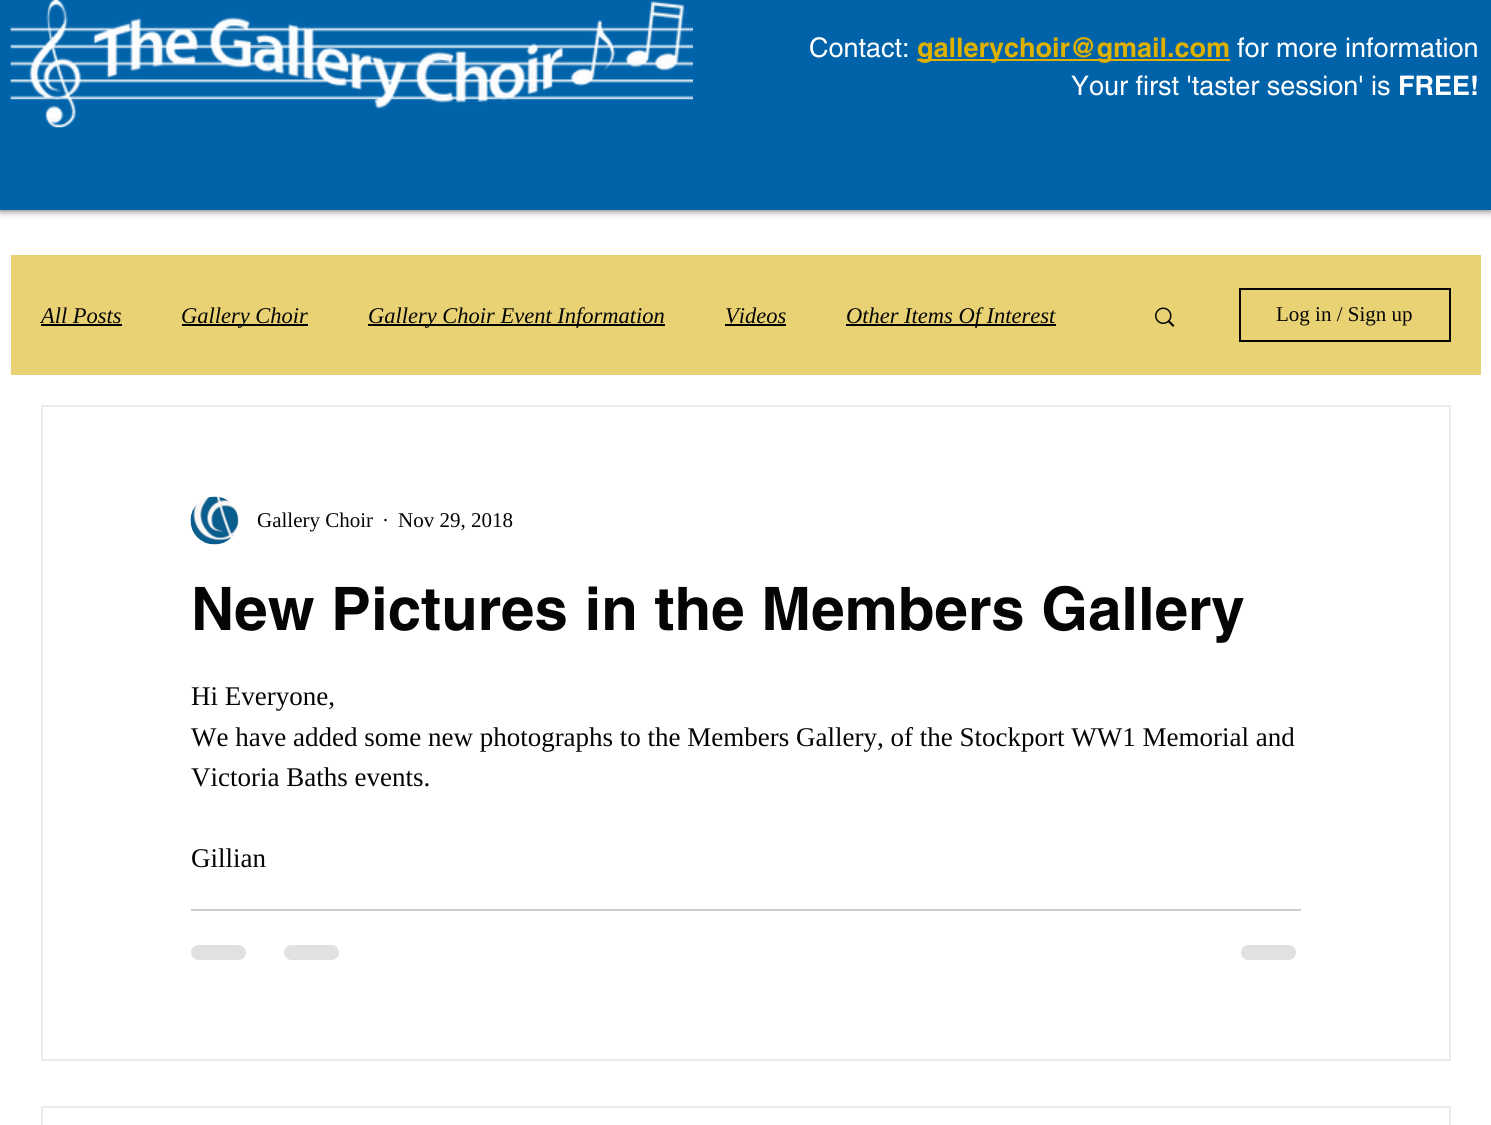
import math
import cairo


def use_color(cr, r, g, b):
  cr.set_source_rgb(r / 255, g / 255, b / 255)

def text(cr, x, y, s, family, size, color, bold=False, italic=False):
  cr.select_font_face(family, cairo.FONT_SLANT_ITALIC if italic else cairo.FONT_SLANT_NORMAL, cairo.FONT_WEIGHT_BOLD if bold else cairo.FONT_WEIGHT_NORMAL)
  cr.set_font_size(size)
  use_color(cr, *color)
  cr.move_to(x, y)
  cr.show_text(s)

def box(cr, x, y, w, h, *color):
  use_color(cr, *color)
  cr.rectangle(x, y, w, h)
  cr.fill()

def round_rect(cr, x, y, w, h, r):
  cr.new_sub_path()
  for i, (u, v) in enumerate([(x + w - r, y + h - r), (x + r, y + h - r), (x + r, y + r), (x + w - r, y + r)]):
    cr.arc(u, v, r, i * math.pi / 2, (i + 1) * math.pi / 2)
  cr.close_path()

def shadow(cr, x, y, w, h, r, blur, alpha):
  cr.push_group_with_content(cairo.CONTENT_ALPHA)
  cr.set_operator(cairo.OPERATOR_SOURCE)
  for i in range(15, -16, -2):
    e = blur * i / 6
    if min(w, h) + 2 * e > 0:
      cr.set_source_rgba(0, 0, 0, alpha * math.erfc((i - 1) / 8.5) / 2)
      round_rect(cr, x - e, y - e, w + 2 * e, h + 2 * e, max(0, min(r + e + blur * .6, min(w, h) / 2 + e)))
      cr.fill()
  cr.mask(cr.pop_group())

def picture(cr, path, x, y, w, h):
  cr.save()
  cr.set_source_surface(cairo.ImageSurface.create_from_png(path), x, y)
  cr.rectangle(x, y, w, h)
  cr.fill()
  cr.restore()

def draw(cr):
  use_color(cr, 255, 255, 255)
  cr.paint()
  use_color(cr, 0, 0, 0)
  shadow(cr, 0, -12, 1491, 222, 0, 4, 0.7)
  box(cr, 0, 0, 1491, 210, 0, 99, 170)
  picture(cr, "img_01.png", 10, 0, 683, 128)
  box(cr, 917, 59, 313, 2, 222, 177, 0)
  box(cr, 11, 255, 1470, 120, 233, 210, 116)
  box(cr, 41, 324, 81, 2, 0, 0, 0)
  box(cr, 182, 324, 126, 2, 0, 0, 0)
  box(cr, 368, 324, 297, 2, 0, 0, 0)
  box(cr, 725, 324, 61, 2, 0, 0, 0)
  box(cr, 846, 324, 210, 2, 0, 0, 0)
  picture(cr, "img_02.png", 1155, 307, 20, 20)
  cr.rectangle(1240, 289, 210, 52)
  use_color(cr, 5, 5, 5)
  cr.stroke()
  cr.rectangle(42, 406, 1408, 654)
  use_color(cr, 236, 236, 236)
  cr.stroke()
  picture(cr, "img_03.png", 190, 496, 49, 49)
  box(cr, 191, 909, 1110, 2, 205, 205, 205)
  use_color(cr, 225, 225, 225)
  round_rect(cr, 191, 945, 55, 15, 7.5)
  cr.fill()
  round_rect(cr, 284, 945, 55, 15, 7.5)
  cr.fill()
  round_rect(cr, 1241, 945, 55, 15, 7.5)
  cr.fill()
  cr.rectangle(42, 1107, 1408, 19)
  use_color(cr, 236, 236, 236)
  cr.stroke()
  text(cr, 809, 57, "Contact:", "helvetica", 27, (255, 255, 255))
  text(cr, 917, 57, "gallerychoir@gmail.com", "helvetica", 27, (222, 177, 0), bold=True)
  text(cr, 1237, 57, "for more information", "helvetica", 27, (255, 255, 255))
  text(cr, 1071, 95, "Your first 'taster session' is", "helvetica", 27, (255, 255, 255))
  text(cr, 1398, 95, "FREE!", "helvetica", 27, (255, 255, 255), bold=True)
  text(cr, 41, 323, "All Posts", "Liberation Serif", 22.5, (5, 5, 5), italic=True)
  text(cr, 181, 323, "Gallery Choir", "Liberation Serif", 22.5, (5, 5, 5), italic=True)
  text(cr, 368, 323, "Gallery Choir Event Information", "Liberation Serif", 22.5, (5, 5, 5), italic=True)
  text(cr, 725, 323, "Videos", "Liberation Serif", 22.5, (5, 5, 5), italic=True)
  text(cr, 846, 323, "Other Items Of Interest", "Liberation Serif", 22.5, (5, 5, 5), italic=True)
  text(cr, 1276, 321, "Log in / Sign up", "Liberation Serif", 21, (5, 5, 5))
  text(cr, 257, 527, "Gallery Choir", "Liberation Serif", 21, (5, 5, 5))
  text(cr, 382, 527, "·", "Liberation Serif", 21, (5, 5, 5))
  text(cr, 398, 527, "Nov 29, 2018", "Liberation Serif", 21, (5, 5, 5))
  text(cr, 191, 630, "New Pictures in the Members Gallery", "helvetica", 60, (5, 5, 5), bold=True)
  text(cr, 191, 705, "Hi Everyone,", "Liberation Serif", 27, (5, 5, 5))
  text(cr, 191, 746, "We have added some new photographs to the Members Gallery, of the Stockport WW1 Memorial and", "Liberation Serif", 27, (5, 5, 5))
  text(cr, 191, 786, "Victoria Baths events.", "Liberation Serif", 27, (5, 5, 5))
  text(cr, 191, 867, "Gillian", "Liberation Serif", 27, (5, 5, 5))


surface = cairo.ImageSurface(cairo.FORMAT_RGB24, 1491, 1125)
cr = cairo.Context(surface)
options = cairo.FontOptions()
options.set_hint_metrics(cairo.HINT_METRICS_OFF)
options.set_hint_style(cairo.HINT_STYLE_NONE)
cr.set_font_options(options)
cr.set_miter_limit(4)
draw(cr)
surface.write_to_png("out.png")
